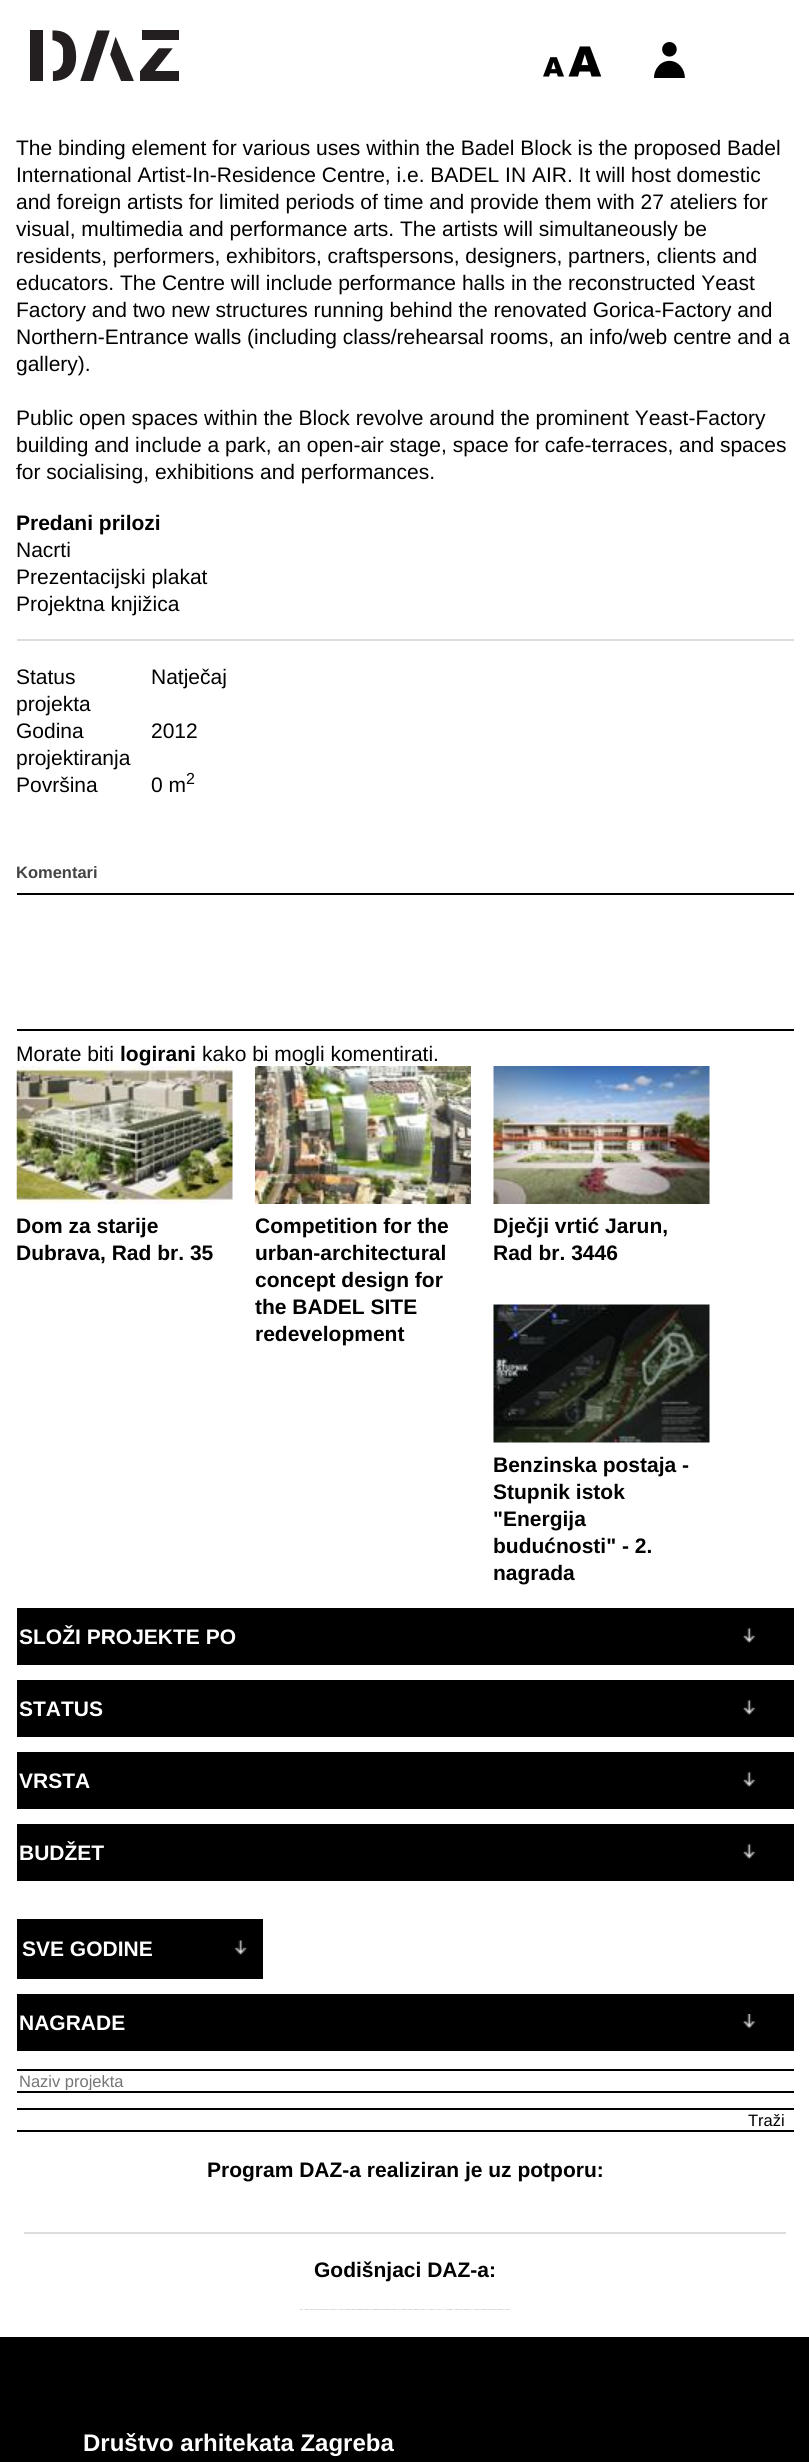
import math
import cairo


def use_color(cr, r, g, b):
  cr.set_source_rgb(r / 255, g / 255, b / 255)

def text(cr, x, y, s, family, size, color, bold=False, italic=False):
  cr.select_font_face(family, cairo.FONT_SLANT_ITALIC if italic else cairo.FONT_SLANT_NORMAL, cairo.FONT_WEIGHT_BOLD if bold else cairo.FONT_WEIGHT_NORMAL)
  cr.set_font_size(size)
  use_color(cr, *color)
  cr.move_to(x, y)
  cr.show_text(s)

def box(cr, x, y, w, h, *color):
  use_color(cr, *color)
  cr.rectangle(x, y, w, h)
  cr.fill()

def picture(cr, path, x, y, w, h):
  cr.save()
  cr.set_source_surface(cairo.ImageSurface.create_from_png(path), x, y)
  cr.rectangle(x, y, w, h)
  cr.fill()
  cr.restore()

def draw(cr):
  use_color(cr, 255, 255, 255)
  cr.paint()
  picture(cr, "img_01.png", 30, 30, 149, 51)
  picture(cr, "img_02.png", 543, 46, 59, 31)
  picture(cr, "img_03.png", 654, 42, 31, 36)
  box(cr, 17, 639, 777, 2, 221, 221, 221)
  box(cr, 17, 893, 777, 2, 0, 0, 0)
  box(cr, 17, 1029, 777, 2, 0, 0, 0)
  picture(cr, "img_04.png", 16, 1066, 217, 138)
  picture(cr, "img_05.png", 255, 1066, 216, 138)
  picture(cr, "img_06.png", 493, 1066, 217, 138)
  picture(cr, "img_07.png", 493, 1304, 217, 139)
  box(cr, 17, 1608, 777, 57, 0, 0, 0)
  picture(cr, "img_08.png", 742, 1628, 14, 15)
  box(cr, 17, 1680, 777, 57, 0, 0, 0)
  picture(cr, "img_08.png", 742, 1700, 14, 15)
  box(cr, 17, 1752, 777, 57, 0, 0, 0)
  picture(cr, "img_08.png", 742, 1772, 14, 15)
  box(cr, 17, 1824, 777, 57, 0, 0, 0)
  picture(cr, "img_08.png", 742, 1844, 14, 15)
  box(cr, 17, 1919, 246, 60, 0, 0, 0)
  picture(cr, "img_09.png", 234, 1940, 14, 15)
  box(cr, 17, 1994, 777, 57, 0, 0, 0)
  picture(cr, "img_10.png", 742, 2014, 14, 15)
  box(cr, 17, 2069, 777, 2, 0, 0, 0)
  box(cr, 17, 2091, 777, 2, 0, 0, 0)
  box(cr, 17, 2108, 777, 2, 0, 0, 0)
  box(cr, 17, 2130, 777, 2, 0, 0, 0)
  box(cr, 24, 2232, 762, 2, 221, 221, 221)
  picture(cr, "img_11.png", 300, 2309, 210, 1)
  box(cr, 0, 2337, 809, 125, 0, 0, 0)
  text(cr, 16, 155, "The binding element for various uses within the Badel Block is the proposed Badel", "Liberation Sans", 21, (0, 0, 0))
  text(cr, 16, 182, "International Artist-In-Residence Centre, i.e. BADEL IN AIR. It will host domestic", "Liberation Sans", 21, (0, 0, 0))
  text(cr, 16, 209, "and foreign artists for limited periods of time and provide them with 27 ateliers for", "Liberation Sans", 21, (0, 0, 0))
  text(cr, 16, 236, "visual, multimedia and performance arts. The artists will simultaneously be", "Liberation Sans", 21, (0, 0, 0))
  text(cr, 16, 263, "residents, performers, exhibitors, craftspersons, designers, partners, clients and", "Liberation Sans", 21, (0, 0, 0))
  text(cr, 16, 290, "educators. The Centre will include performance halls in the reconstructed Yeast", "Liberation Sans", 21, (0, 0, 0))
  text(cr, 16, 317, "Factory and two new structures running behind the renovated Gorica-Factory and", "Liberation Sans", 21, (0, 0, 0))
  text(cr, 16, 344, "Northern-Entrance walls (including class/rehearsal rooms, an info/web centre and a", "Liberation Sans", 21, (0, 0, 0))
  text(cr, 16, 371, "gallery).", "Liberation Sans", 21, (0, 0, 0))
  text(cr, 16, 425, "Public open spaces within the Block revolve around the prominent Yeast-Factory", "Liberation Sans", 21, (0, 0, 0))
  text(cr, 16, 452, "building and include a park, an open-air stage, space for cafe-terraces, and spaces", "Liberation Sans", 21, (0, 0, 0))
  text(cr, 16, 479, "for socialising, exhibitions and performances.", "Liberation Sans", 21, (0, 0, 0))
  text(cr, 16, 530, "Predani prilozi", "Liberation Sans", 21, (0, 0, 0), bold=True)
  text(cr, 16, 557, "Nacrti", "Liberation Sans", 21, (0, 0, 0))
  text(cr, 16, 584, "Prezentacijski plakat", "Liberation Sans", 21, (0, 0, 0))
  text(cr, 16, 611, "Projektna knjižica", "Liberation Sans", 21, (0, 0, 0))
  text(cr, 16, 684, "Status", "Liberation Sans", 21, (0, 0, 0))
  text(cr, 16, 711, "projekta", "Liberation Sans", 21, (0, 0, 0))
  text(cr, 151, 684, "Natječaj", "Liberation Sans", 21, (0, 0, 0))
  text(cr, 16, 738, "Godina", "Liberation Sans", 21, (0, 0, 0))
  text(cr, 16, 765, "projektiranja", "Liberation Sans", 21, (0, 0, 0))
  text(cr, 151, 738, "2012", "Liberation Sans", 21, (0, 0, 0))
  text(cr, 16, 792, "Površina", "Liberation Sans", 21, (0, 0, 0))
  text(cr, 151, 792, "0 m", "Liberation Sans", 21, (0, 0, 0))
  text(cr, 186, 784, "2", "Liberation Sans", 16, (0, 0, 0))
  text(cr, 16, 878, "Komentari", "Liberation Sans", 16.5, (68, 68, 68), bold=True)
  text(cr, 16, 1061, "Morate biti", "Liberation Sans", 21, (0, 0, 0))
  text(cr, 120, 1061, "logirani", "Liberation Sans", 21, (0, 0, 0), bold=True)
  text(cr, 202, 1061, "kako bi mogli komentirati.", "Liberation Sans", 21, (0, 0, 0))
  text(cr, 16, 1233, "Dom za starije", "Liberation Sans", 21, (0, 0, 0), bold=True)
  text(cr, 16, 1260, "Dubrava, Rad br. 35", "Liberation Sans", 21, (0, 0, 0), bold=True)
  text(cr, 255, 1233, "Competition for the", "Liberation Sans", 21, (0, 0, 0), bold=True)
  text(cr, 255, 1260, "urban-architectural", "Liberation Sans", 21, (0, 0, 0), bold=True)
  text(cr, 255, 1287, "concept design for", "Liberation Sans", 21, (0, 0, 0), bold=True)
  text(cr, 255, 1314, "the BADEL SITE", "Liberation Sans", 21, (0, 0, 0), bold=True)
  text(cr, 255, 1341, "redevelopment", "Liberation Sans", 21, (0, 0, 0), bold=True)
  text(cr, 493, 1233, "Dječji vrtić Jarun,", "Liberation Sans", 21, (0, 0, 0), bold=True)
  text(cr, 493, 1260, "Rad br. 3446", "Liberation Sans", 21, (0, 0, 0), bold=True)
  text(cr, 493, 1472, "Benzinska postaja -", "Liberation Sans", 21, (0, 0, 0), bold=True)
  text(cr, 493, 1499, "Stupnik istok", "Liberation Sans", 21, (0, 0, 0), bold=True)
  text(cr, 493, 1526, "\"Energija", "Liberation Sans", 21, (0, 0, 0), bold=True)
  text(cr, 493, 1553, "budućnosti\" - 2.", "Liberation Sans", 21, (0, 0, 0), bold=True)
  text(cr, 493, 1580, "nagrada", "Liberation Sans", 21, (0, 0, 0), bold=True)
  text(cr, 19, 1644, "SLOŽI PROJEKTE PO", "Liberation Sans", 21, (255, 255, 255), bold=True)
  text(cr, 19, 1716, "STATUS", "Liberation Sans", 21, (255, 255, 255), bold=True)
  text(cr, 19, 1788, "VRSTA", "Liberation Sans", 21, (255, 255, 255), bold=True)
  text(cr, 19, 1860, "BUDŽET", "Liberation Sans", 21, (255, 255, 255), bold=True)
  text(cr, 22, 1956, "SVE GODINE", "Liberation Sans", 21, (255, 255, 255), bold=True)
  text(cr, 19, 2030, "NAGRADE", "Liberation Sans", 21, (255, 255, 255), bold=True)
  cr.save()
  cr.rectangle(20, 2072, 774, 18)
  cr.clip()
  text(cr, 19, 2087, "Naziv projekta", "Liberation Sans", 16.5, (117, 117, 117))
  cr.restore()
  text(cr, 748, 2126, "Traži", "Liberation Sans", 16.5, (0, 0, 0))
  text(cr, 207, 2177, "Program DAZ-a realiziran je uz potporu:", "Liberation Sans", 21, (0, 0, 0), bold=True)
  text(cr, 314, 2277, "Godišnjaci DAZ-a:", "Liberation Sans", 21, (0, 0, 0), bold=True)
  text(cr, 83, 2451, "Društvo arhitekata Zagreba", "Liberation Sans", 24, (255, 255, 255), bold=True)


surface = cairo.ImageSurface(cairo.FORMAT_RGB24, 809, 2462)
cr = cairo.Context(surface)
options = cairo.FontOptions()
options.set_hint_metrics(cairo.HINT_METRICS_OFF)
options.set_hint_style(cairo.HINT_STYLE_NONE)
cr.set_font_options(options)
cr.set_miter_limit(4)
draw(cr)
surface.write_to_png("out.png")
